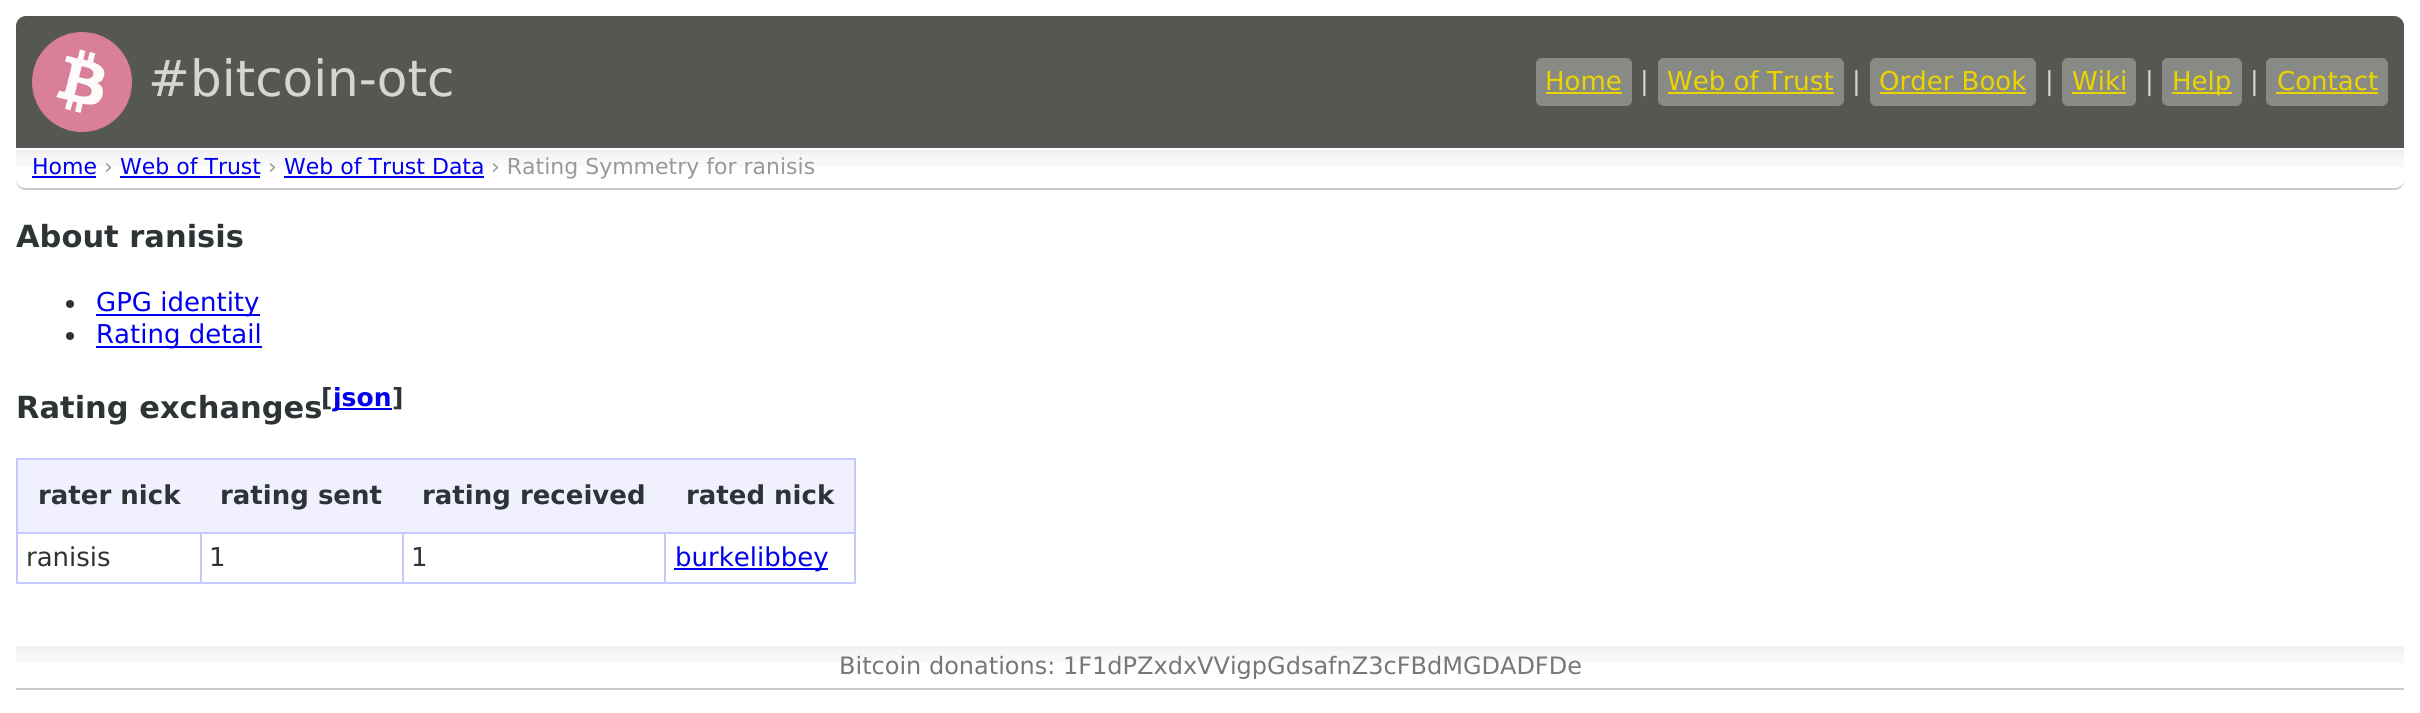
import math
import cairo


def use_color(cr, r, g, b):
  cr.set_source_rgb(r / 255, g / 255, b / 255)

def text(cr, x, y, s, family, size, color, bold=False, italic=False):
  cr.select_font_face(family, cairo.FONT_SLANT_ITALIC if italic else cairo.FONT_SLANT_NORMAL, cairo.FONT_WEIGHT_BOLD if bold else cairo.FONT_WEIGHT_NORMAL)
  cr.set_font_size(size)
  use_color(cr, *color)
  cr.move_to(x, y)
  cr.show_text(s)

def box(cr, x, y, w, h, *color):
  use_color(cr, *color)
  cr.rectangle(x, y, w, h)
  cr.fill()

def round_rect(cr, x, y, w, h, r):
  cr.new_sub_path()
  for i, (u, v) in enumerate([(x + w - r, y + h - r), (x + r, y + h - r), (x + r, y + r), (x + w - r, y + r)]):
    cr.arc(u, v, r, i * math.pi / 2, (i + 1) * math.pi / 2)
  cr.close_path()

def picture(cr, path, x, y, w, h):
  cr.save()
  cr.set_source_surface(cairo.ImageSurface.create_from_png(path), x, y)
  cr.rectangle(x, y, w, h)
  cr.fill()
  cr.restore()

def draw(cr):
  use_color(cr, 255, 255, 255)
  cr.paint()
  use_color(cr, 85, 87, 83)
  cr.new_path()
  cr.move_to(26, 16)
  cr.line_to(2394, 16)
  cr.curve_to(2399.5, 16, 2404, 20.5, 2404, 26)
  cr.line_to(2404, 148)
  cr.line_to(16, 148)
  cr.line_to(16, 26)
  cr.curve_to(16, 20.5, 20.5, 16, 26, 16)
  cr.close_path()
  cr.fill()
  picture(cr, "img_01.png", 32, 32, 100, 100)
  use_color(cr, 136, 138, 133)
  round_rect(cr, 1536, 58, 96, 48, 6)
  cr.fill()
  box(cr, 1546, 92, 76, 2, 237, 212, 0)
  use_color(cr, 136, 138, 133)
  round_rect(cr, 1658, 58, 186, 48, 6)
  cr.fill()
  box(cr, 1668, 92, 166, 2, 237, 212, 0)
  use_color(cr, 136, 138, 133)
  round_rect(cr, 1870, 58, 166, 48, 6)
  cr.fill()
  box(cr, 1880, 92, 146, 2, 237, 212, 0)
  use_color(cr, 136, 138, 133)
  round_rect(cr, 2062, 58, 74, 48, 6)
  cr.fill()
  box(cr, 2072, 92, 54, 2, 237, 212, 0)
  use_color(cr, 136, 138, 133)
  round_rect(cr, 2162, 58, 80, 48, 6)
  cr.fill()
  box(cr, 2172, 92, 60, 2, 237, 212, 0)
  use_color(cr, 136, 138, 133)
  round_rect(cr, 2266, 58, 122, 48, 6)
  cr.fill()
  box(cr, 2276, 92, 102, 2, 237, 212, 0)
  picture(cr, "img_02.png", 16, 150, 2388, 17)
  use_color(cr, 204, 204, 204)
  cr.new_path()
  cr.move_to(26, 190)
  cr.line_to(2394, 190)
  cr.curve_to(2400, 190, 2404, 186, 2404, 180)
  cr.curve_to(2404, 184, 2400, 188, 2394, 188)
  cr.line_to(26, 188)
  cr.curve_to(20, 188, 16, 184, 16, 180)
  cr.curve_to(16, 186, 20, 190, 26, 190)
  cr.close_path()
  cr.fill()
  box(cr, 32, 176, 64, 2, 0, 0, 238)
  box(cr, 120, 176, 140, 2, 0, 0, 238)
  box(cr, 284, 176, 200, 2, 0, 0, 238)
  use_color(cr, 46, 52, 54)
  cr.arc(70, 304, 4, 0, 2 * math.pi)
  cr.fill()
  box(cr, 96, 314, 164, 2, 0, 0, 238)
  use_color(cr, 46, 52, 54)
  cr.arc(70, 336, 4, 0, 2 * math.pi)
  cr.fill()
  box(cr, 96, 346, 166, 2, 0, 0, 238)
  box(cr, 334, 408, 58, 2, 0, 0, 238)
  box(cr, 16, 458, 840, 2, 198, 201, 255)
  box(cr, 854, 458, 2, 126, 198, 201, 255)
  box(cr, 16, 582, 840, 2, 198, 201, 255)
  box(cr, 16, 458, 2, 126, 198, 201, 255)
  box(cr, 18, 460, 836, 72, 240, 240, 255)
  box(cr, 664, 532, 192, 2, 198, 201, 255)
  box(cr, 664, 532, 2, 52, 198, 201, 255)
  box(cr, 402, 532, 264, 2, 198, 201, 255)
  box(cr, 402, 532, 2, 52, 198, 201, 255)
  box(cr, 200, 532, 204, 2, 198, 201, 255)
  box(cr, 200, 532, 2, 52, 198, 201, 255)
  box(cr, 16, 532, 186, 2, 198, 201, 255)
  box(cr, 674, 568, 154, 2, 0, 0, 238)
  picture(cr, "img_02.png", 16, 646, 2388, 17)
  box(cr, 16, 688, 2388, 2, 204, 204, 204)
  text(cr, 148, 96, "#bitcoin-otc", "DejaVu Sans", 50, (211, 215, 207))
  text(cr, 1545, 90, "Home", "DejaVu Sans", 26, (237, 212, 0))
  text(cr, 1640, 90, "|", "DejaVu Sans", 26, (211, 215, 207))
  text(cr, 1667, 90, "Web of Trust", "DejaVu Sans", 26, (237, 212, 0))
  text(cr, 1852, 90, "|", "DejaVu Sans", 26, (211, 215, 207))
  text(cr, 1879, 90, "Order Book", "DejaVu Sans", 26, (237, 212, 0))
  text(cr, 2045, 90, "|", "DejaVu Sans", 26, (211, 215, 207))
  text(cr, 2072, 90, "Wiki", "DejaVu Sans", 26, (237, 212, 0))
  text(cr, 2145, 90, "|", "DejaVu Sans", 26, (211, 215, 207))
  text(cr, 2172, 90, "Help", "DejaVu Sans", 26, (237, 212, 0))
  text(cr, 2250, 90, "|", "DejaVu Sans", 26, (211, 215, 207))
  text(cr, 2277, 90, "Contact", "DejaVu Sans", 26, (237, 212, 0))
  text(cr, 32, 174, "Home", "DejaVu Sans", 22, (0, 0, 238))
  text(cr, 104, 174, "›", "DejaVu Sans", 22, (153, 153, 153))
  text(cr, 120, 174, "Web of Trust", "DejaVu Sans", 22, (0, 0, 238))
  text(cr, 268, 174, "›", "DejaVu Sans", 22, (153, 153, 153))
  text(cr, 284, 174, "Web of Trust Data", "DejaVu Sans", 22, (0, 0, 238))
  text(cr, 491, 174, "› Rating Symmetry for ranisis", "DejaVu Sans", 22, (153, 153, 153))
  text(cr, 16, 247, "About ranisis", "DejaVu Sans", 30.5, (46, 52, 54), bold=True)
  text(cr, 96, 311, "GPG identity", "DejaVu Sans", 26, (0, 0, 238))
  text(cr, 96, 343, "Rating detail", "DejaVu Sans", 26, (0, 0, 238))
  text(cr, 16, 418, "Rating exchanges", "DejaVu Sans", 30.5, (46, 52, 54), bold=True)
  text(cr, 321, 406, "[", "DejaVu Sans", 25, (46, 52, 54), bold=True)
  text(cr, 333, 406, "json", "DejaVu Sans", 25, (0, 0, 238), bold=True)
  text(cr, 392, 406, "]", "DejaVu Sans", 25, (46, 52, 54), bold=True)
  text(cr, 38, 504, "rater nick", "DejaVu Sans", 26, (46, 52, 54), bold=True)
  text(cr, 220, 504, "rating sent", "DejaVu Sans", 26, (46, 52, 54), bold=True)
  text(cr, 422, 504, "rating received", "DejaVu Sans", 26, (46, 52, 54), bold=True)
  text(cr, 686, 504, "rated nick", "DejaVu Sans", 26, (46, 52, 54), bold=True)
  text(cr, 26, 566, "ranisis", "DejaVu Sans", 26, (46, 52, 54))
  text(cr, 209, 566, "1", "DejaVu Sans", 26, (46, 52, 54))
  text(cr, 411, 566, "1", "DejaVu Sans", 26, (46, 52, 54))
  text(cr, 675, 566, "burkelibbey", "DejaVu Sans", 26, (0, 0, 238))
  text(cr, 839, 674, "Bitcoin donations: 1F1dPZxdxVVigpGdsafnZ3cFBdMGDADFDe", "DejaVu Sans", 24, (119, 119, 119))


surface = cairo.ImageSurface(cairo.FORMAT_RGB24, 2420, 713)
cr = cairo.Context(surface)
options = cairo.FontOptions()
options.set_hint_metrics(cairo.HINT_METRICS_OFF)
options.set_hint_style(cairo.HINT_STYLE_NONE)
cr.set_font_options(options)
cr.set_miter_limit(4)
draw(cr)
surface.write_to_png("out.png")
